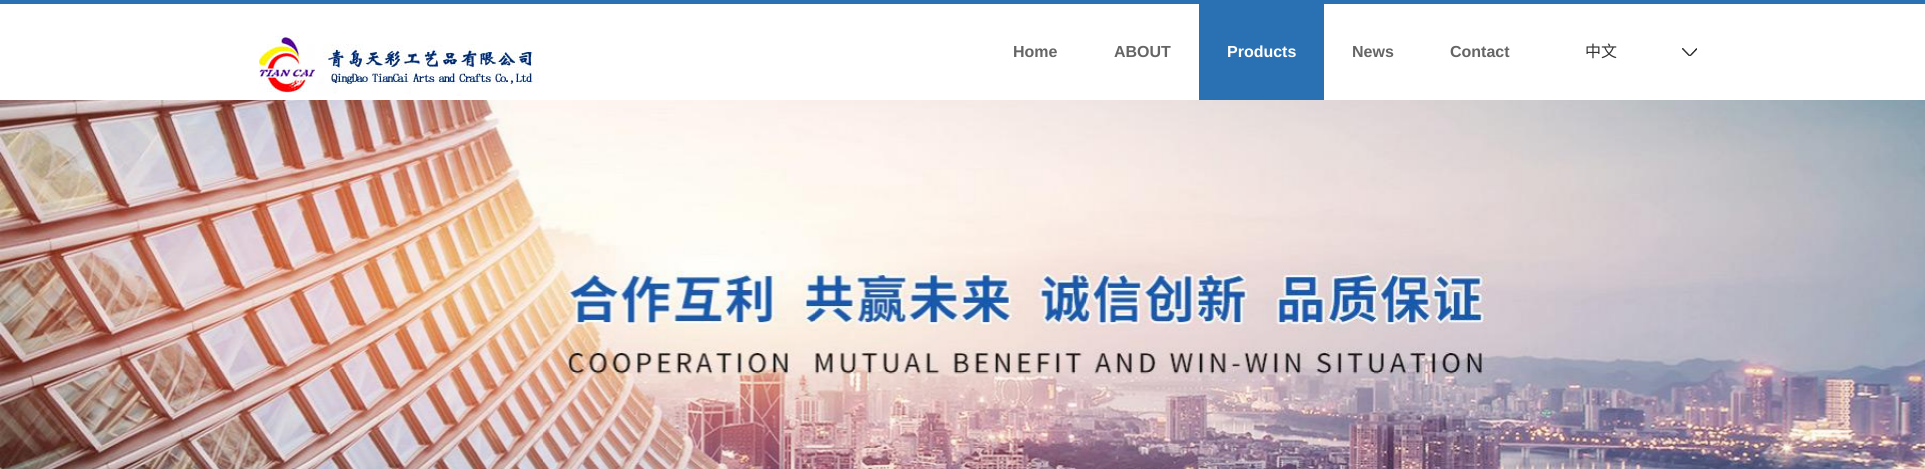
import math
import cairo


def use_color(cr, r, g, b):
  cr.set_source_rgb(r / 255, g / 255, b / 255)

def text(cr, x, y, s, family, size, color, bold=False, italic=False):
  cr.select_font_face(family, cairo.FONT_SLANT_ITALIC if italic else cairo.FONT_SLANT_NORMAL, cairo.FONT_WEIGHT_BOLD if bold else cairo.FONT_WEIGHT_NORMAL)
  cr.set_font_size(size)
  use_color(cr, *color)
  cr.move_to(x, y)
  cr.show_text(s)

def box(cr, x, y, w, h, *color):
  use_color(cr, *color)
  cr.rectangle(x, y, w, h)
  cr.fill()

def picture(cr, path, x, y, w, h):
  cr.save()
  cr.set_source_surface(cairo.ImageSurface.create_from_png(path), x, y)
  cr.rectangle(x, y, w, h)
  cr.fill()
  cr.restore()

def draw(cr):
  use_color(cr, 255, 255, 255)
  cr.paint()
  box(cr, 0, 0, 1925, 4, 42, 113, 180)
  picture(cr, "img_01.png", 259, 36, 280, 60)
  box(cr, 1199, 4, 125, 96, 42, 113, 180)
  picture(cr, "img_02.png", 1682, 48, 15, 8)
  picture(cr, "img_03.png", 0, 100, 1925, 369)
  text(cr, 1013, 57, "Home", "Liberation Sans", 16, (102, 101, 101), bold=True)
  text(cr, 1114, 57, "ABOUT", "Liberation Sans", 16, (102, 101, 101), bold=True)
  text(cr, 1227, 57, "Products", "Liberation Sans", 16, (255, 255, 255), bold=True)
  text(cr, 1352, 57, "News", "Liberation Sans", 16, (102, 101, 101), bold=True)
  text(cr, 1450, 57, "Contact", "Liberation Sans", 16, (102, 101, 101), bold=True)
  text(cr, 1585, 57, "中文", "Noto Sans CJK SC", 16, (51, 51, 51))


surface = cairo.ImageSurface(cairo.FORMAT_RGB24, 1925, 469)
cr = cairo.Context(surface)
options = cairo.FontOptions()
options.set_hint_metrics(cairo.HINT_METRICS_OFF)
options.set_hint_style(cairo.HINT_STYLE_NONE)
cr.set_font_options(options)
cr.set_miter_limit(4)
draw(cr)
surface.write_to_png("out.png")
